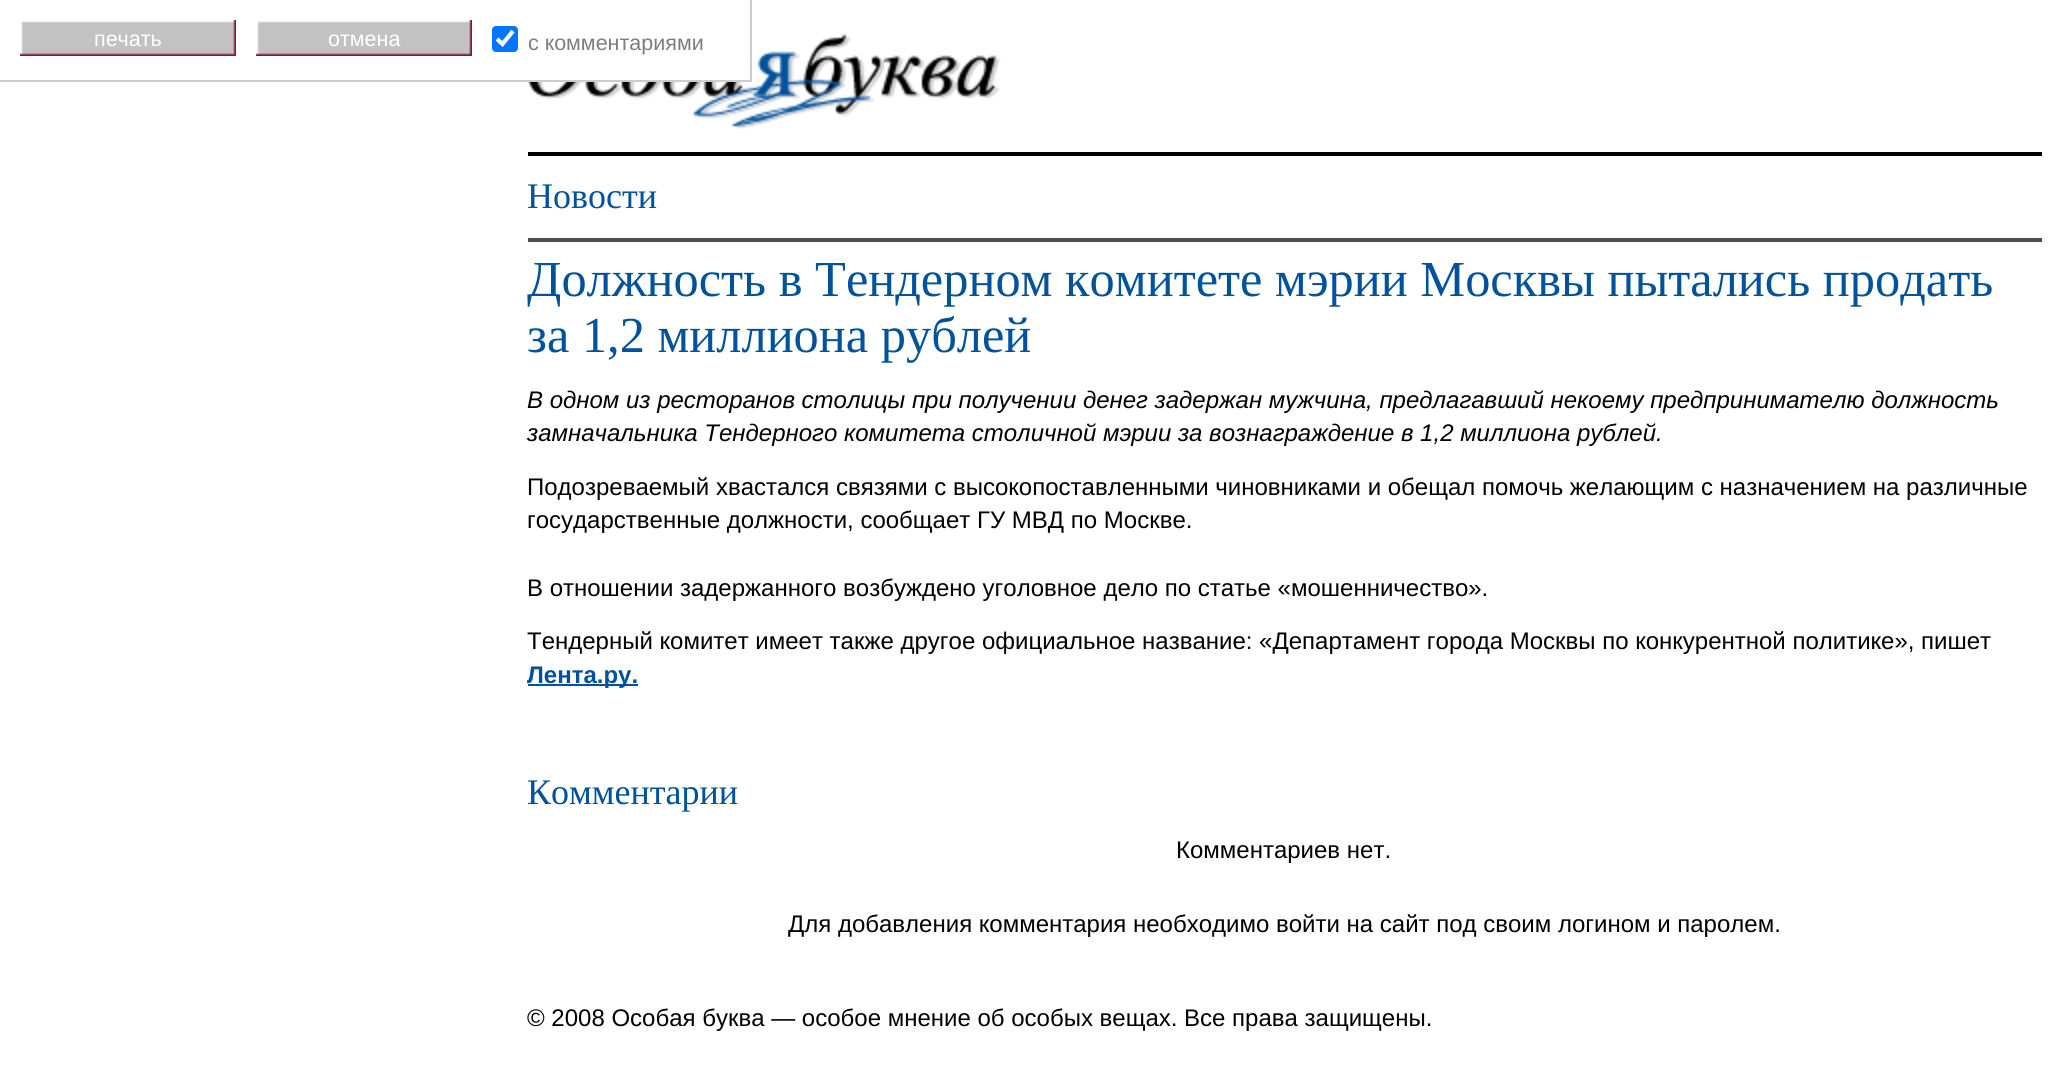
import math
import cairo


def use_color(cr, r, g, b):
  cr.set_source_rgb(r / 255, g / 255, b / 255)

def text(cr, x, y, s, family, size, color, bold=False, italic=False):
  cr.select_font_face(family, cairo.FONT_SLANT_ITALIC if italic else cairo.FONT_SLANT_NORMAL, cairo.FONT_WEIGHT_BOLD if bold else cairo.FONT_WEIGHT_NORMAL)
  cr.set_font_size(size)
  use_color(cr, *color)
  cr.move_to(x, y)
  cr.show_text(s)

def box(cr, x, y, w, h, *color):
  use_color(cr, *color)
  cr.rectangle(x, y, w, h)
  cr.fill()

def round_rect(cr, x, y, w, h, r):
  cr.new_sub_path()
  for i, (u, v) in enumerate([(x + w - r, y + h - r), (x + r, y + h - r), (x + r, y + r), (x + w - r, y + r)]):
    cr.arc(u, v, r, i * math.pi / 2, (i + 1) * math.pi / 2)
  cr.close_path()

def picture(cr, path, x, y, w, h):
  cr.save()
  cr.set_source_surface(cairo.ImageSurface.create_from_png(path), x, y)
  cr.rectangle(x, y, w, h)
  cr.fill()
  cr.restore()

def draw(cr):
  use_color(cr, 255, 255, 255)
  cr.paint()
  picture(cr, "img_02.png", 528, 33, 473, 96)
  box(cr, 528, 33, 220, 47, 255, 255, 255)
  box(cr, 750, 0, 2, 82, 204, 204, 204)
  box(cr, 0, 80, 752, 2, 204, 204, 204)
  picture(cr, "img_01.png", 20, 20, 216, 36)
  picture(cr, "img_01.png", 256, 20, 216, 36)
  use_color(cr, 0, 117, 255)
  round_rect(cr, 492, 26, 26, 26, 4)
  cr.fill()
  cr.new_path()
  cr.move_to(497, 39)
  cr.line_to(502.5, 44)
  cr.line_to(513, 31)
  use_color(cr, 255, 255, 255)
  cr.set_line_width(4.2)
  cr.stroke()
  box(cr, 528, 152, 1514, 4, 0, 0, 0)
  box(cr, 528, 238, 1514, 4, 77, 77, 79)
  box(cr, 528, 684, 110, 2, 0, 82, 155)
  text(cr, 94, 46, "печать", "Liberation Sans", 21.5, (255, 255, 255))
  text(cr, 328, 46, "отмена", "Liberation Sans", 21.5, (255, 255, 255))
  text(cr, 528, 50, "с комментариями", "Liberation Sans", 21.5, (125, 125, 125))
  text(cr, 527, 208, "Новости", "Liberation Serif", 36, (0, 82, 155))
  text(cr, 527, 296, "Должность в Тендерном комитете мэрии Москвы пытались продать", "Liberation Serif", 50.4, (0, 82, 155))
  text(cr, 527, 352, "за 1,2 миллиона рублей", "Liberation Serif", 50.4, (0, 82, 155))
  text(cr, 527, 408, "В одном из ресторанов столицы при получении денег задержан мужчина, предлагавший некоему предпринимателю должность", "Liberation Sans", 24, (0, 0, 0), italic=True)
  text(cr, 527, 441, "замначальника Тендерного комитета столичной мэрии за вознаграждение в 1,2 миллиона рублей.", "Liberation Sans", 24, (0, 0, 0), italic=True)
  text(cr, 527, 495, "Подозреваемый хвастался связями с высокопоставленными чиновниками и обещал помочь желающим с назначением на различные", "Liberation Sans", 24, (0, 0, 0))
  text(cr, 527, 528, "государственные должности, сообщает ГУ МВД по Москве.", "Liberation Sans", 24, (0, 0, 0))
  text(cr, 527, 596, "В отношении задержанного возбуждено уголовное дело по статье «мошенничество».", "Liberation Sans", 24, (0, 0, 0))
  text(cr, 527, 649, "Тендерный комитет имеет также другое официальное название: «Департамент города Москвы по конкурентной политике», пишет", "Liberation Sans", 24, (0, 0, 0))
  text(cr, 527, 683, "Лента.ру.", "Liberation Sans", 24, (0, 82, 155), bold=True)
  text(cr, 527, 804, "Комментарии", "Liberation Serif", 36, (0, 82, 155))
  text(cr, 1176, 858, "Комментариев нет.", "Liberation Sans", 24, (0, 0, 0))
  text(cr, 788, 932, "Для добавления комментария необходимо войти на сайт под своим логином и паролем.", "Liberation Sans", 24, (0, 0, 0))
  text(cr, 527, 1026, "© 2008 Особая буква — особое мнение об особых вещах. Все права защищены.", "Liberation Sans", 24, (0, 0, 0))


surface = cairo.ImageSurface(cairo.FORMAT_RGB24, 2067, 1076)
cr = cairo.Context(surface)
options = cairo.FontOptions()
options.set_hint_metrics(cairo.HINT_METRICS_OFF)
options.set_hint_style(cairo.HINT_STYLE_NONE)
cr.set_font_options(options)
cr.set_miter_limit(4)
draw(cr)
surface.write_to_png("out.png")
